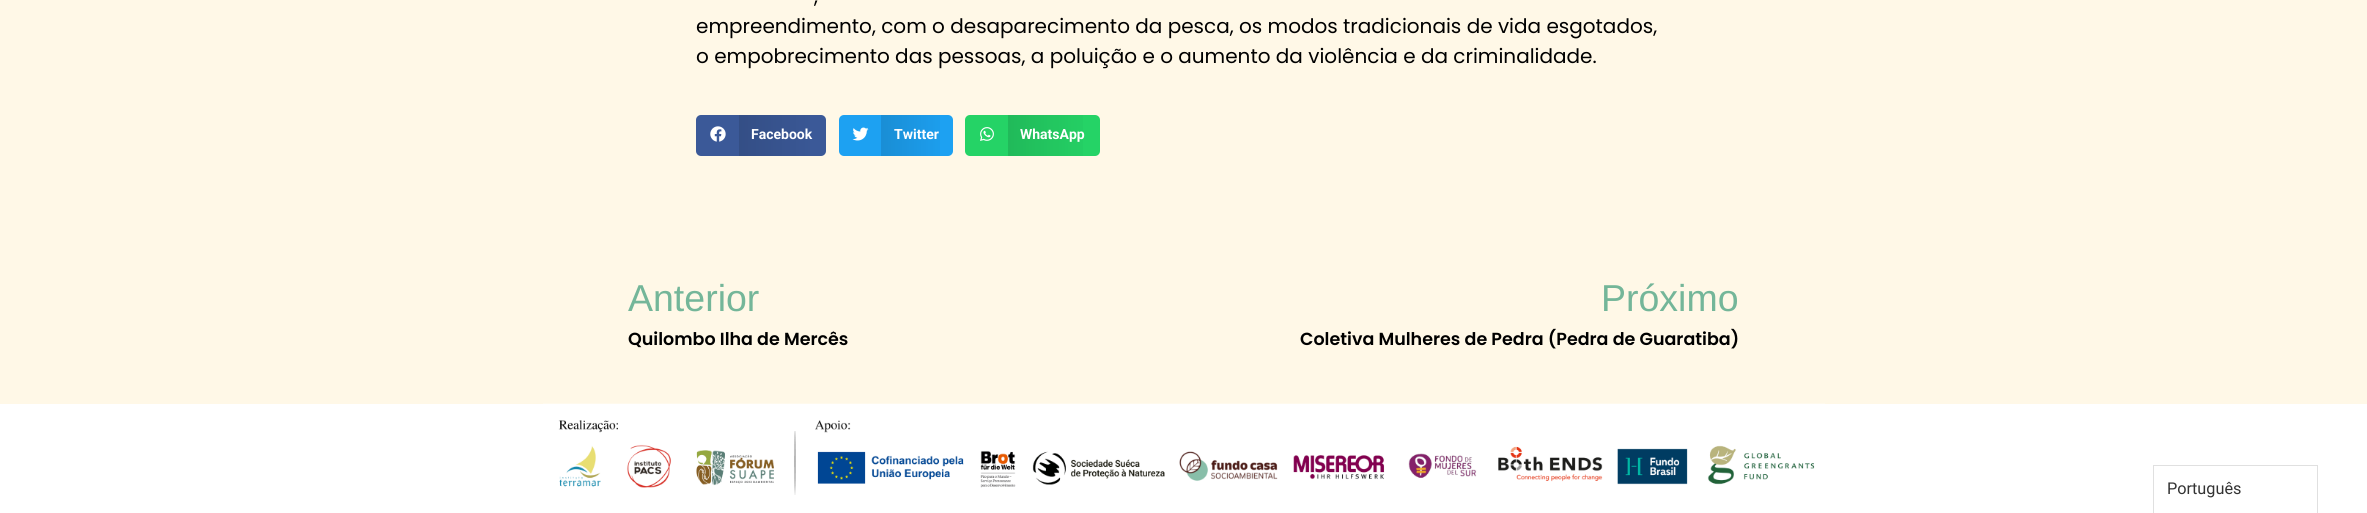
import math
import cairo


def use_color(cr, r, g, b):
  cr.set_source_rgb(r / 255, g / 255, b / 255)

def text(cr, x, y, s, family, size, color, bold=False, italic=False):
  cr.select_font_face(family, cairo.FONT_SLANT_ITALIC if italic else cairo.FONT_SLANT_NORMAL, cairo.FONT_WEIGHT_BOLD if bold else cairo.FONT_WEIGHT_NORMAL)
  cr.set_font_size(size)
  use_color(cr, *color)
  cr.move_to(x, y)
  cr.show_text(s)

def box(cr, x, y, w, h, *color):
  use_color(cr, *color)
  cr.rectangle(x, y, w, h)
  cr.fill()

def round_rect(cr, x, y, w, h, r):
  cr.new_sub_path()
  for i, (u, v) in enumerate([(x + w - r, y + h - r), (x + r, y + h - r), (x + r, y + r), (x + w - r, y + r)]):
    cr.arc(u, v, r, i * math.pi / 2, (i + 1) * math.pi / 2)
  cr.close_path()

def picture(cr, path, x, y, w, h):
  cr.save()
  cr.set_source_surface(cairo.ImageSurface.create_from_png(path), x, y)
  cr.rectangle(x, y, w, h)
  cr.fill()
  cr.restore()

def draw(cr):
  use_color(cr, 255, 248, 231)
  cr.paint()
  use_color(cr, 59, 89, 152)
  round_rect(cr, 696, 115, 130, 41, 5)
  cr.fill()
  picture(cr, "img_01.png", 710, 126, 16, 16)
  gradient = cairo.LinearGradient(739, 136, 826, 136)
  gradient.add_color_stop_rgba(0, 0, 0, 0, 0.12)
  gradient.add_color_stop_rgba(1, 0, 0, 0, 0)
  cr.set_source(gradient)
  cr.rectangle(739, 115, 71, 41)
  cr.fill()
  use_color(cr, 29, 161, 242)
  round_rect(cr, 839, 115, 114, 41, 5)
  cr.fill()
  picture(cr, "img_02.png", 852, 127, 17, 14)
  gradient = cairo.LinearGradient(881, 136, 953, 136)
  gradient.add_color_stop_rgba(0, 0, 0, 0, 0.12)
  gradient.add_color_stop_rgba(1, 0, 0, 0, 0)
  cr.set_source(gradient)
  cr.rectangle(881, 115, 59, 41)
  cr.fill()
  use_color(cr, 37, 211, 102)
  round_rect(cr, 965, 115, 135, 41, 5)
  cr.fill()
  picture(cr, "img_03.png", 980, 127, 14, 14)
  gradient = cairo.LinearGradient(1008, 136, 1100, 136)
  gradient.add_color_stop_rgba(0, 0, 0, 0, 0.12)
  gradient.add_color_stop_rgba(1, 0, 0, 0, 0)
  cr.set_source(gradient)
  cr.rectangle(1008, 115, 75, 41)
  cr.fill()
  box(cr, 0, 404, 2367, 109, 255, 255, 255)
  picture(cr, "img_04.png", 543, 403, 1282, 92)
  cr.rectangle(2153.5, 465.5, 164, 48)
  use_color(cr, 224, 224, 224)
  cr.set_line_width(1)
  cr.stroke()
  text(cr, 814, 3, ",", "Poppins", 20, (0, 0, 0))
  text(cr, 696, 33, "empreendimento, com o desaparecimento da pesca, os modos tradicionais de vida esgotados,", "Poppins", 20, (0, 0, 0))
  text(cr, 696, 63, "o empobrecimento das pessoas, a poluição e o aumento da violência e da criminalidade.", "Poppins", 20, (0, 0, 0))
  text(cr, 751, 139, "Facebook", "Roboto", 14, (255, 255, 255), bold=True)
  text(cr, 894, 139, "Twitter", "Roboto", 14, (255, 255, 255), bold=True)
  text(cr, 1020, 139, "WhatsApp", "Roboto", 14, (255, 255, 255), bold=True)
  text(cr, 628, 311, "Anterior", "Liberation Sans", 37.5, (116, 182, 153))
  text(cr, 628, 345, "Quilombo Ilha de Mercês", "Poppins SemiBold", 17.5, (0, 0, 0))
  text(cr, 1601, 311, "Próximo", "Liberation Sans", 37.5, (116, 182, 153))
  text(cr, 1300, 345, "Coletiva Mulheres de Pedra (Pedra de Guaratiba)", "Poppins SemiBold", 17.5, (0, 0, 0))
  text(cr, 2167, 494, "Português", "Roboto", 16.25, (51, 51, 51))


surface = cairo.ImageSurface(cairo.FORMAT_RGB24, 2367, 513)
cr = cairo.Context(surface)
options = cairo.FontOptions()
options.set_hint_metrics(cairo.HINT_METRICS_OFF)
options.set_hint_style(cairo.HINT_STYLE_NONE)
cr.set_font_options(options)
cr.set_miter_limit(4)
draw(cr)
surface.write_to_png("out.png")
